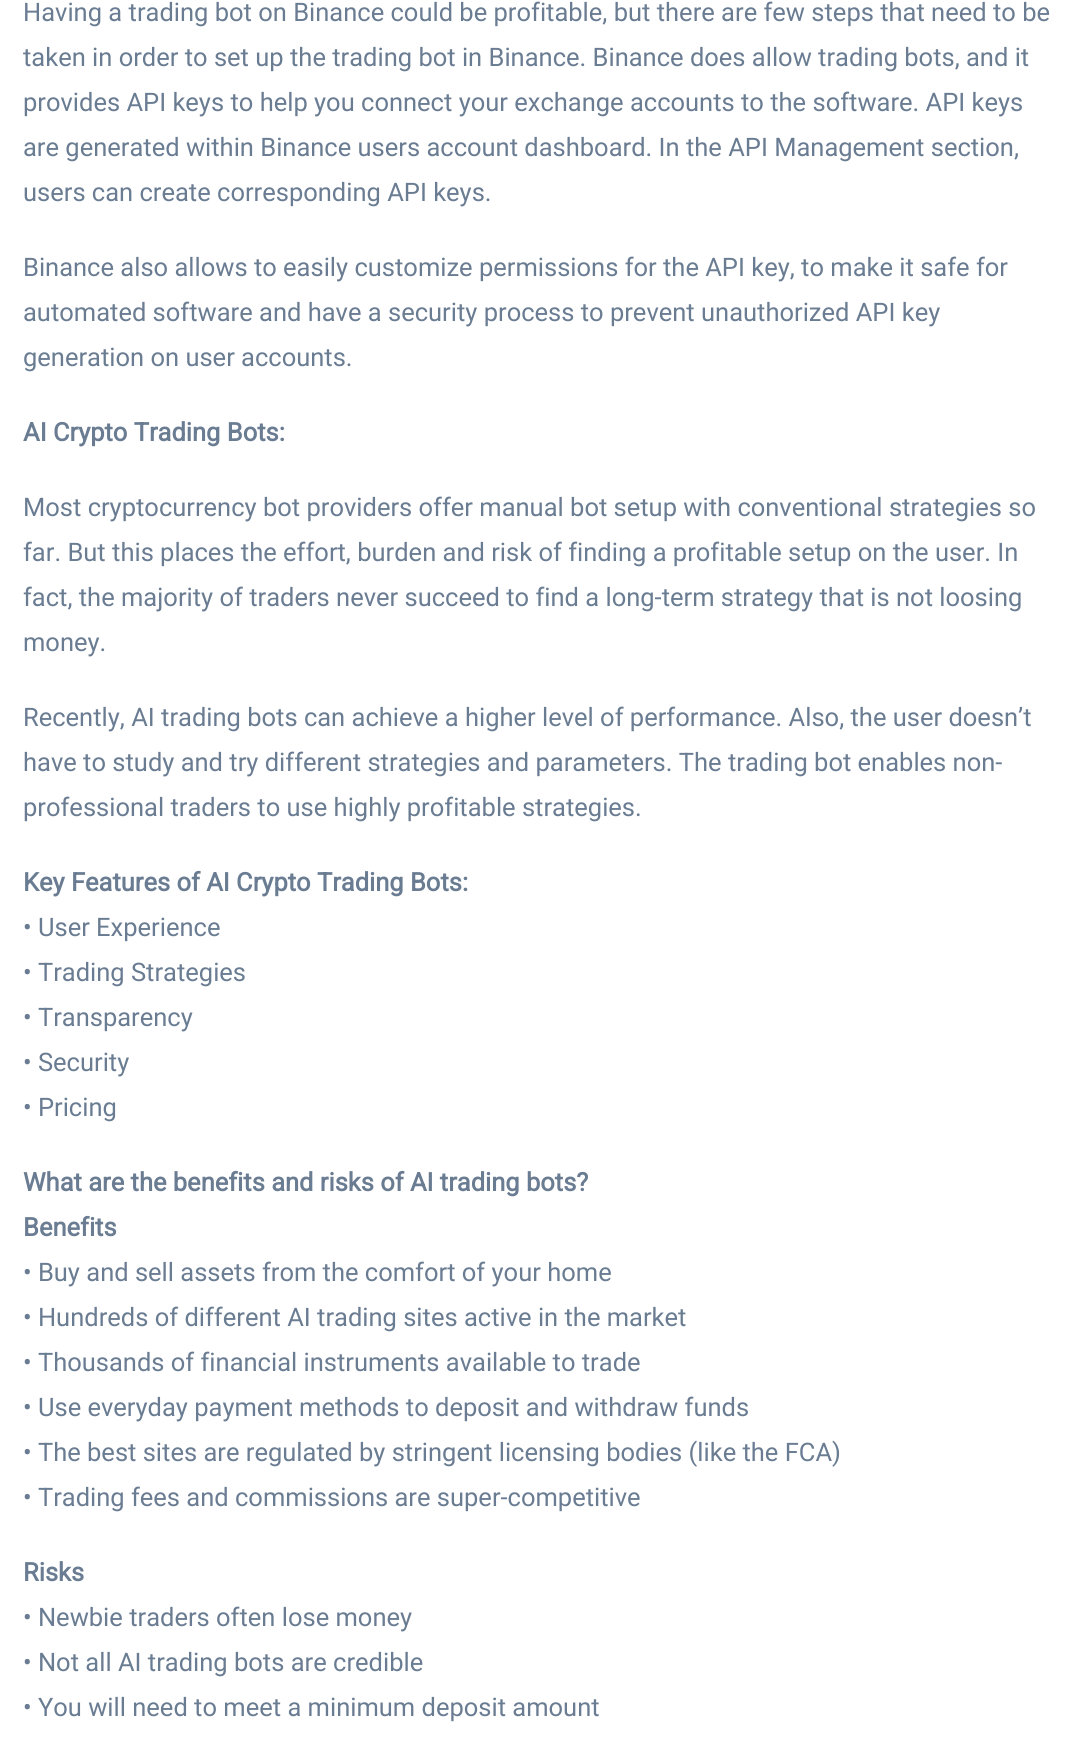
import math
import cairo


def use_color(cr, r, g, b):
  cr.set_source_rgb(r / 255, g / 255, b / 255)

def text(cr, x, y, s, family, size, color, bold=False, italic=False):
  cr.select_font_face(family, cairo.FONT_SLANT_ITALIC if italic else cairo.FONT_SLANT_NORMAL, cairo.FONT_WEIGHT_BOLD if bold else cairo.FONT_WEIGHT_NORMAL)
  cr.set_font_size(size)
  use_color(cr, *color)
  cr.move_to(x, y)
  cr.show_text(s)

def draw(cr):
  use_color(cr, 255, 255, 255)
  cr.paint()
  text(cr, 23, 21, "Having a trading bot on Binance could be profitable, but there are few steps that need to be", "Roboto", 25.5, (106, 124, 146))
  text(cr, 23, 66, "taken in order to set up the trading bot in Binance. Binance does allow trading bots, and it", "Roboto", 25.5, (106, 124, 146))
  text(cr, 23, 111, "provides API keys to help you connect your exchange accounts to the software. API keys", "Roboto", 25.5, (106, 124, 146))
  text(cr, 23, 156, "are generated within Binance users account dashboard. In the API Management section,", "Roboto", 25.5, (106, 124, 146))
  text(cr, 23, 201, "users can create corresponding API keys.", "Roboto", 25.5, (106, 124, 146))
  text(cr, 23, 276, "Binance also allows to easily customize permissions for the API key, to make it safe for", "Roboto", 25.5, (106, 124, 146))
  text(cr, 23, 321, "automated software and have a security process to prevent unauthorized API key", "Roboto", 25.5, (106, 124, 146))
  text(cr, 23, 366, "generation on user accounts.", "Roboto", 25.5, (106, 124, 146))
  text(cr, 23, 441, "AI Crypto Trading Bots:", "Roboto", 25.5, (106, 124, 146), bold=True)
  text(cr, 23, 516, "Most cryptocurrency bot providers offer manual bot setup with conventional strategies so", "Roboto", 25.5, (106, 124, 146))
  text(cr, 23, 561, "far. But this places the effort, burden and risk of finding a profitable setup on the user. In", "Roboto", 25.5, (106, 124, 146))
  text(cr, 23, 606, "fact, the majority of traders never succeed to find a long-term strategy that is not loosing", "Roboto", 25.5, (106, 124, 146))
  text(cr, 23, 651, "money.", "Roboto", 25.5, (106, 124, 146))
  text(cr, 23, 726, "Recently, AI trading bots can achieve a higher level of performance. Also, the user doesn’t", "Roboto", 25.5, (106, 124, 146))
  text(cr, 23, 771, "have to study and try different strategies and parameters. The trading bot enables non-", "Roboto", 25.5, (106, 124, 146))
  text(cr, 23, 816, "professional traders to use highly profitable strategies.", "Roboto", 25.5, (106, 124, 146))
  text(cr, 23, 891, "Key Features of AI Crypto Trading Bots:", "Roboto", 25.5, (106, 124, 146), bold=True)
  text(cr, 23, 936, "• User Experience", "Roboto", 25.5, (106, 124, 146))
  text(cr, 23, 981, "• Trading Strategies", "Roboto", 25.5, (106, 124, 146))
  text(cr, 23, 1026, "• Transparency", "Roboto", 25.5, (106, 124, 146))
  text(cr, 23, 1071, "• Security", "Roboto", 25.5, (106, 124, 146))
  text(cr, 23, 1116, "• Pricing", "Roboto", 25.5, (106, 124, 146))
  text(cr, 23, 1191, "What are the benefits and risks of AI trading bots?", "Roboto", 25.5, (106, 124, 146), bold=True)
  text(cr, 23, 1236, "Benefits", "Roboto", 25.5, (106, 124, 146), bold=True)
  text(cr, 23, 1281, "• Buy and sell assets from the comfort of your home", "Roboto", 25.5, (106, 124, 146))
  text(cr, 23, 1326, "• Hundreds of different AI trading sites active in the market", "Roboto", 25.5, (106, 124, 146))
  text(cr, 23, 1371, "• Thousands of financial instruments available to trade", "Roboto", 25.5, (106, 124, 146))
  text(cr, 23, 1416, "• Use everyday payment methods to deposit and withdraw funds", "Roboto", 25.5, (106, 124, 146))
  text(cr, 23, 1461, "• The best sites are regulated by stringent licensing bodies (like the FCA)", "Roboto", 25.5, (106, 124, 146))
  text(cr, 23, 1506, "• Trading fees and commissions are super-competitive", "Roboto", 25.5, (106, 124, 146))
  text(cr, 23, 1581, "Risks", "Roboto", 25.5, (106, 124, 146), bold=True)
  text(cr, 23, 1626, "• Newbie traders often lose money", "Roboto", 25.5, (106, 124, 146))
  text(cr, 23, 1671, "• Not all AI trading bots are credible", "Roboto", 25.5, (106, 124, 146))
  text(cr, 23, 1716, "• You will need to meet a minimum deposit amount", "Roboto", 25.5, (106, 124, 146))


surface = cairo.ImageSurface(cairo.FORMAT_RGB24, 1075, 1752)
cr = cairo.Context(surface)
options = cairo.FontOptions()
options.set_hint_metrics(cairo.HINT_METRICS_OFF)
options.set_hint_style(cairo.HINT_STYLE_NONE)
cr.set_font_options(options)
cr.set_miter_limit(4)
draw(cr)
surface.write_to_png("out.png")
